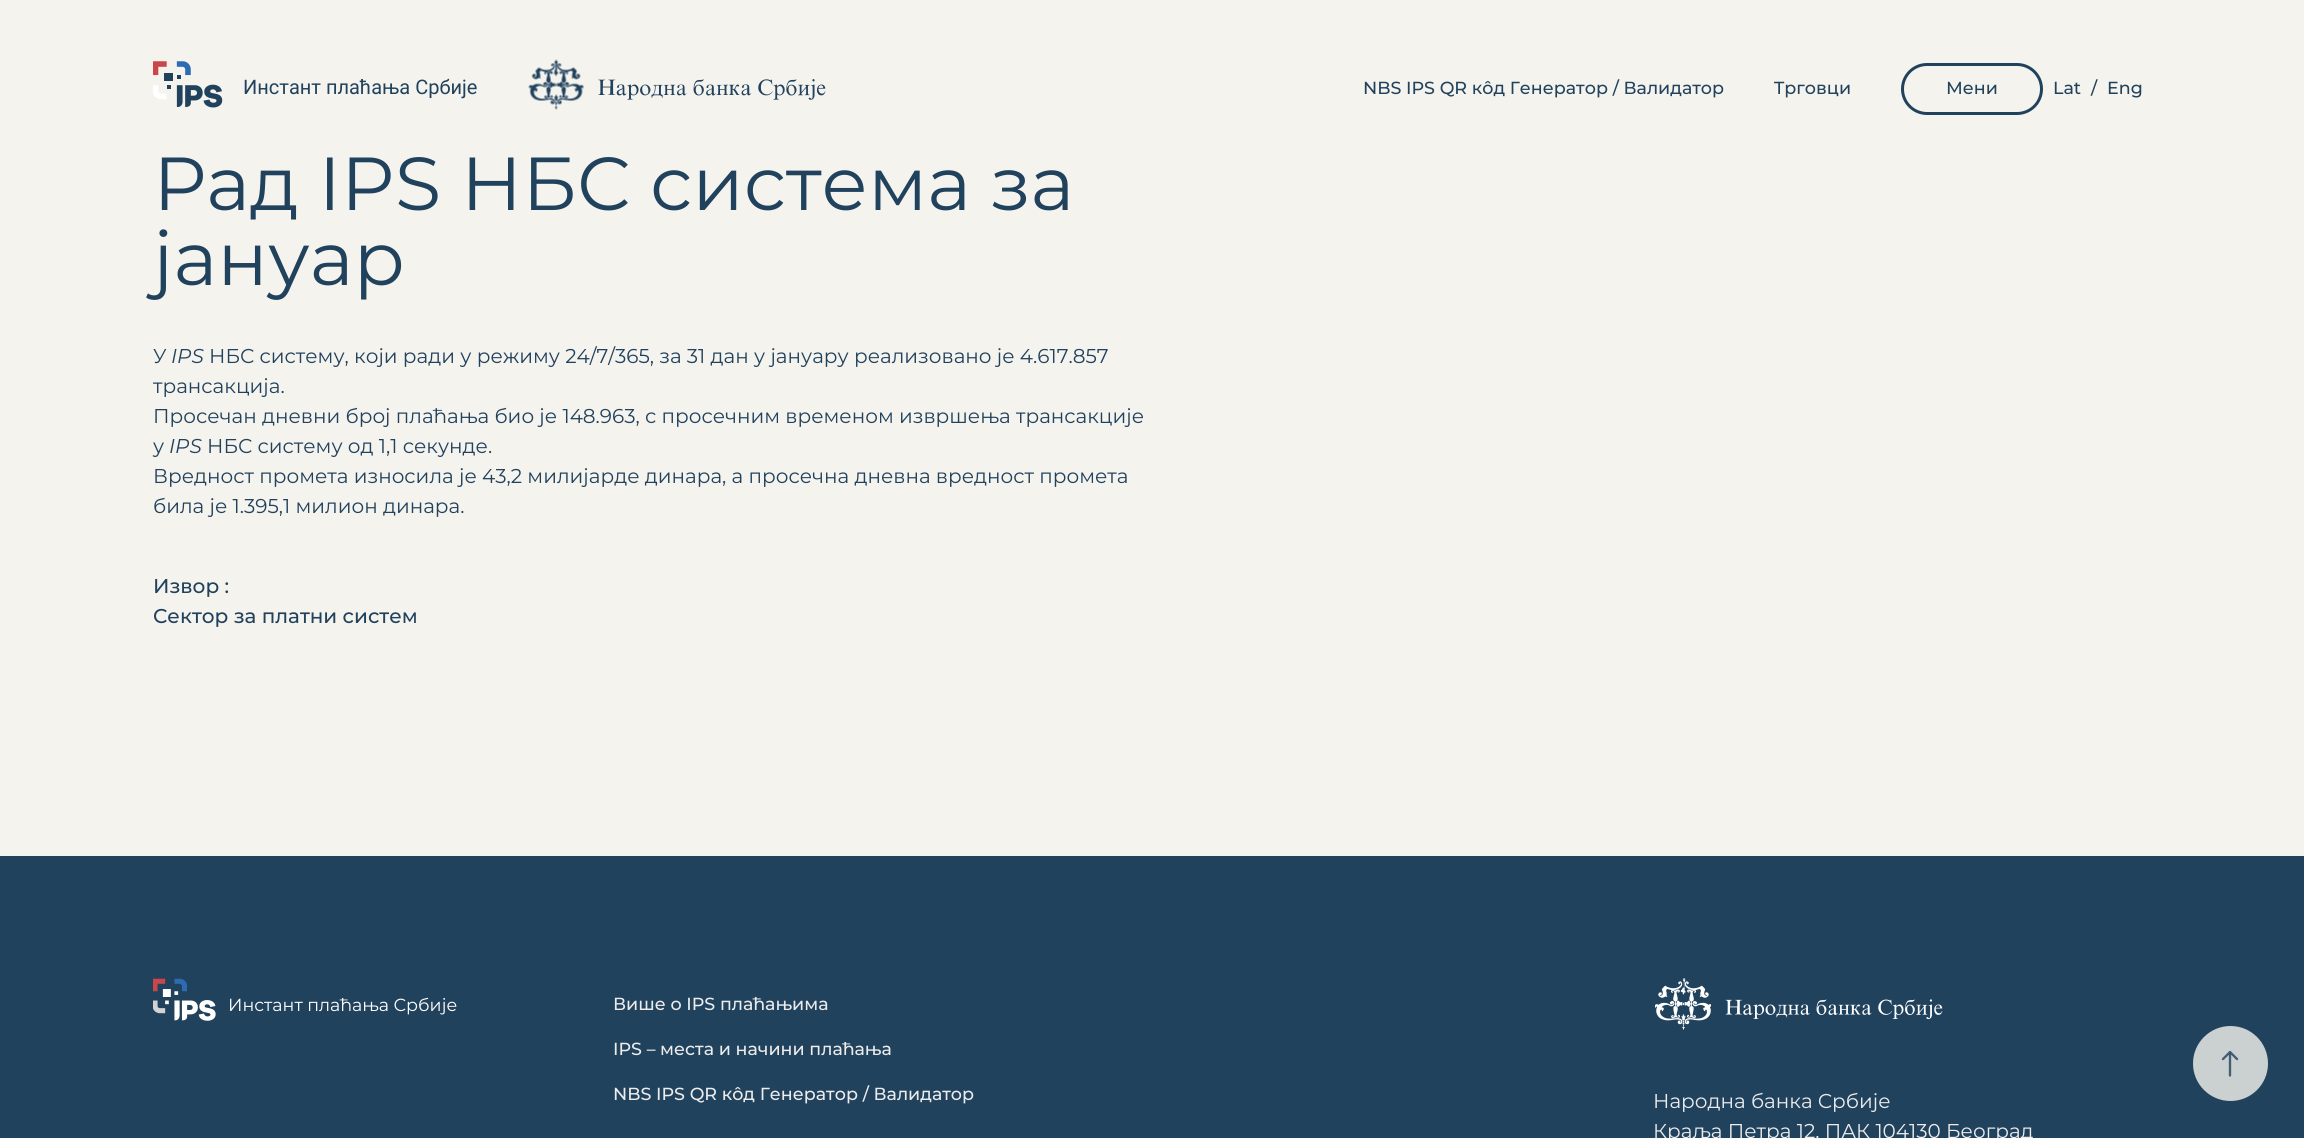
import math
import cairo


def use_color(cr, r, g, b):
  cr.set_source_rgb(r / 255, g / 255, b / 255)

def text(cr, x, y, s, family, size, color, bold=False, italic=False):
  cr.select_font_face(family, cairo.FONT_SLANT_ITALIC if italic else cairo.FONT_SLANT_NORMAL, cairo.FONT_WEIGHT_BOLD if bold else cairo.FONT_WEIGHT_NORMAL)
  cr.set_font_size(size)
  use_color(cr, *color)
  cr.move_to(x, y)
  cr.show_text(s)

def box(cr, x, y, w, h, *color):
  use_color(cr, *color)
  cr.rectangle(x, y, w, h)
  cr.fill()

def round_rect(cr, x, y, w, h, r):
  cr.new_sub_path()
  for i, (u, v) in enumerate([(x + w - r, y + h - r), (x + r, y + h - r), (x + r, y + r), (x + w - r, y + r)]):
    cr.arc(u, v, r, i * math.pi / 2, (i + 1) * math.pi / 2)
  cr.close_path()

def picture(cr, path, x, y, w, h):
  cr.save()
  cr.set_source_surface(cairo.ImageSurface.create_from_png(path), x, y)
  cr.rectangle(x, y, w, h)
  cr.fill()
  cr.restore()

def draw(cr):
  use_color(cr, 245, 243, 238)
  cr.paint()
  picture(cr, "img_01.png", 153, 61, 70, 47)
  picture(cr, "img_02.png", 528, 59, 56, 51)
  picture(cr, "img_03.png", 598, 79, 228, 21)
  round_rect(cr, 1902.5, 64.5, 139, 49, 24.5)
  use_color(cr, 33, 66, 93)
  cr.set_line_width(3)
  cr.stroke()
  box(cr, 0, 856, 2304, 282, 33, 66, 93)
  picture(cr, "img_04.png", 153, 978, 63, 43)
  picture(cr, "img_05.png", 1655, 978, 56, 52)
  picture(cr, "img_06.png", 1725, 999, 218, 21)
  use_color(cr, 203, 208, 209)
  cr.arc(2230.5, 1063.5, 37.5, 0, 2 * math.pi)
  cr.fill()
  picture(cr, "img_07.png", 2221, 1050, 18, 27)
  text(cr, 243, 94, "Инстант плаћања Србије", "Roboto", 20, (33, 66, 93))
  text(cr, 1363, 94, "NBS IPS QR кôд Генератор / Валидатор", "Montserrat Medium", 17.5, (33, 66, 93))
  text(cr, 1774, 94, "Tрговци", "Montserrat Medium", 17.5, (33, 66, 93))
  text(cr, 1946, 94, "Мени", "Montserrat Medium", 17.5, (33, 66, 93))
  text(cr, 2053, 94, "Lat", "Montserrat Medium", 17.5, (33, 66, 93))
  text(cr, 2091, 94, "/", "Montserrat Medium", 17.5, (33, 66, 93))
  text(cr, 2107, 94, "Eng", "Montserrat Medium", 17.5, (33, 66, 93))
  text(cr, 153, 210, "Рад IPS НБС система за", "Montserrat", 75, (33, 66, 93))
  text(cr, 153, 285, "јануар", "Montserrat", 75, (33, 66, 93))
  text(cr, 153, 363, "У", "Montserrat", 20, (33, 66, 93))
  text(cr, 171, 363, "IPS", "Montserrat", 20, (33, 66, 93), italic=True)
  text(cr, 209, 363, "НБС систему, који ради у режиму 24/7/365, за 31 дан у јануару реализовано је 4.617.857", "Montserrat", 20, (33, 66, 93))
  text(cr, 153, 393, "трансакција.", "Montserrat", 20, (33, 66, 93))
  text(cr, 153, 423, "Просечан дневни број плаћања био је 148.963, с просечним временом извршења трансакције", "Montserrat", 20, (33, 66, 93))
  text(cr, 153, 453, "у", "Montserrat", 20, (33, 66, 93))
  text(cr, 169, 453, "IPS", "Montserrat", 20, (33, 66, 93), italic=True)
  text(cr, 207, 453, "НБС систему од 1,1 секунде.", "Montserrat", 20, (33, 66, 93))
  text(cr, 153, 483, "Вредност промета износила је 43,2 милијарде динара, а просечна дневна вредност промета", "Montserrat", 20, (33, 66, 93))
  text(cr, 153, 513, "била је 1.395,1 милион динара.", "Montserrat", 20, (33, 66, 93))
  text(cr, 153, 593, "Извор :", "Montserrat Medium", 20, (33, 66, 93))
  text(cr, 153, 623, "Сектор за платни систем", "Montserrat Medium", 20, (33, 66, 93))
  text(cr, 228, 1011, "Инстант плаћања Србије", "Montserrat", 17.5, (255, 255, 255))
  text(cr, 613, 1010, "Више о IPS плаћањима", "Montserrat Medium", 17.5, (236, 236, 236))
  text(cr, 613, 1055, "IPS – места и начини плаћања", "Montserrat Medium", 17.5, (236, 236, 236))
  text(cr, 613, 1100, "NBS IPS QR кôд Генератор / Валидатор", "Montserrat Medium", 17.5, (236, 236, 236))
  text(cr, 1653, 1108, "Народна банка Србије", "Montserrat", 20, (236, 236, 236))
  text(cr, 1653, 1138, "Краља Петра 12, ПАК 104130 Београд", "Montserrat", 20, (236, 236, 236))


surface = cairo.ImageSurface(cairo.FORMAT_RGB24, 2304, 1138)
cr = cairo.Context(surface)
options = cairo.FontOptions()
options.set_hint_metrics(cairo.HINT_METRICS_OFF)
options.set_hint_style(cairo.HINT_STYLE_NONE)
cr.set_font_options(options)
cr.set_miter_limit(4)
draw(cr)
surface.write_to_png("out.png")
